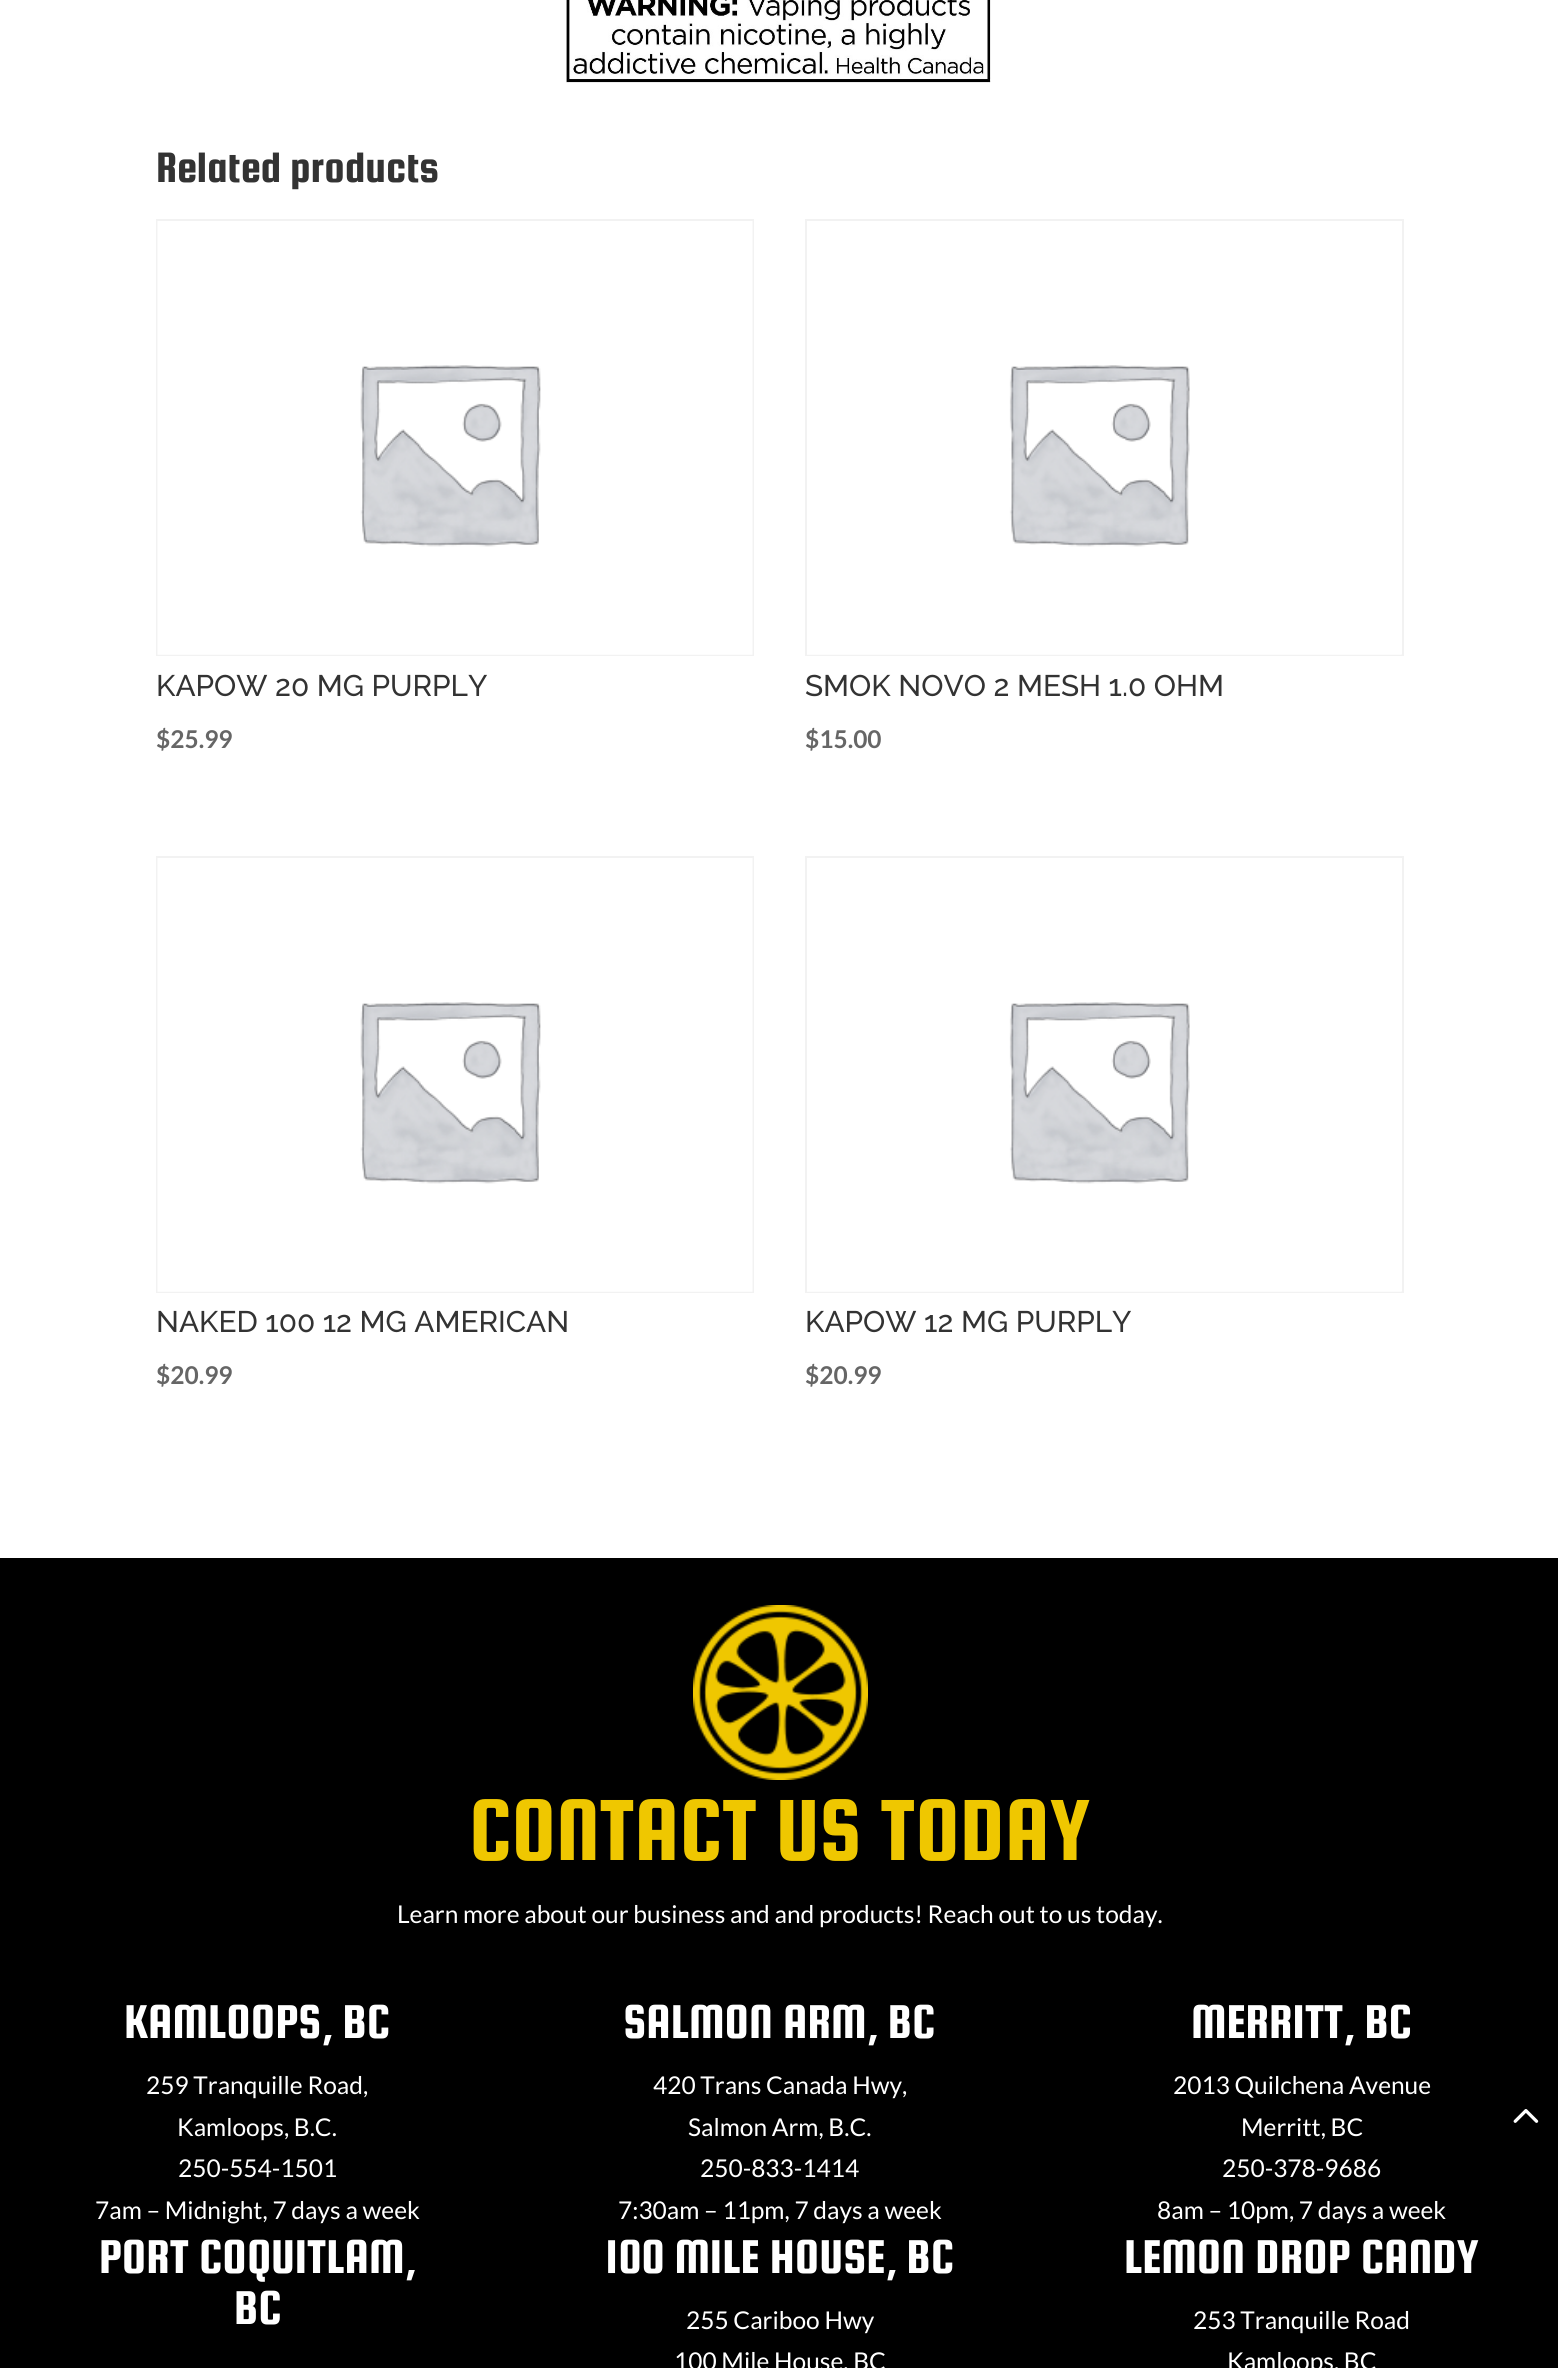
import math
import cairo


def use_color(cr, r, g, b):
  cr.set_source_rgb(r / 255, g / 255, b / 255)

def text(cr, x, y, s, family, size, color, bold=False, italic=False):
  cr.select_font_face(family, cairo.FONT_SLANT_ITALIC if italic else cairo.FONT_SLANT_NORMAL, cairo.FONT_WEIGHT_BOLD if bold else cairo.FONT_WEIGHT_NORMAL)
  cr.set_font_size(size)
  use_color(cr, *color)
  cr.move_to(x, y)
  cr.show_text(s)

def box(cr, x, y, w, h, *color):
  use_color(cr, *color)
  cr.rectangle(x, y, w, h)
  cr.fill()

def picture(cr, path, x, y, w, h):
  cr.save()
  cr.set_source_surface(cairo.ImageSurface.create_from_png(path), x, y)
  cr.rectangle(x, y, w, h)
  cr.fill()
  cr.restore()

def draw(cr):
  use_color(cr, 255, 255, 255)
  cr.paint()
  picture(cr, "img_01.png", 566, 0, 425, 83)
  cr.rectangle(157, 220, 596, 435)
  use_color(cr, 242, 242, 242)
  cr.stroke()
  picture(cr, "img_02.png", 157, 221, 596, 434)
  cr.rectangle(806, 220, 597, 435)
  cr.stroke()
  picture(cr, "img_03.png", 807, 365, 595, 290)
  cr.rectangle(157, 857, 596, 435)
  cr.stroke()
  picture(cr, "img_02.png", 157, 858, 596, 434)
  cr.rectangle(806, 857, 597, 435)
  cr.stroke()
  picture(cr, "img_03.png", 807, 1002, 595, 290)
  box(cr, 0, 1558, 1558, 810, 0, 0, 0)
  picture(cr, "img_04.png", 693, 1605, 175, 175)
  picture(cr, "img_05.png", 1513, 2109, 26, 14)
  text(cr, 156, 182, "Related products", "Squada One", 45.5, (51, 51, 51))
  text(cr, 156, 696, "KAPOW 20 MG PURPLY", "Raleway Thin", 29.75, (51, 51, 51))
  text(cr, 156, 748, "$25.99", "Lato", 24.5, (102, 102, 102), bold=True)
  text(cr, 805, 696, "SMOK NOVO 2 MESH 1.0 OHM", "Raleway Thin", 29.75, (51, 51, 51))
  text(cr, 805, 748, "$15.00", "Lato", 24.5, (102, 102, 102), bold=True)
  text(cr, 156, 1332, "NAKED 100 12 MG AMERICAN", "Raleway Thin", 29.75, (51, 51, 51))
  text(cr, 156, 1384, "$20.99", "Lato", 24.5, (102, 102, 102), bold=True)
  text(cr, 805, 1332, "KAPOW 12 MG PURPLY", "Raleway Thin", 29.75, (51, 51, 51))
  text(cr, 805, 1384, "$20.99", "Lato", 24.5, (102, 102, 102), bold=True)
  text(cr, 469, 1860, "CONTACT US TODAY", "Squada One", 92.75, (239, 199, 0))
  text(cr, 397, 1923, "Learn more about our business and and products! Reach out to us today.", "Lato", 24.5, (255, 255, 255))
  text(cr, 124, 2038, "KAMLOOPS, BC", "Squada One", 50.75, (255, 255, 255))
  text(cr, 146, 2094, "259 Tranquille Road,", "Lato", 24.5, (255, 255, 255))
  text(cr, 177, 2136, "Kamloops, B.C.", "Lato", 24.5, (255, 255, 255))
  text(cr, 178, 2177, "250-554-1501", "Lato", 24.5, (255, 255, 255))
  text(cr, 95, 2219, "7am – Midnight, 7 days a week", "Lato", 24.5, (255, 255, 255))
  text(cr, 623, 2038, "SALMON ARM, BC", "Squada One", 50.75, (255, 255, 255))
  text(cr, 653, 2094, "420 Trans Canada Hwy,", "Lato", 24.5, (255, 255, 255))
  text(cr, 688, 2136, "Salmon Arm, B.C.", "Lato", 24.5, (255, 255, 255))
  text(cr, 700, 2177, "250-833-1414", "Lato", 24.5, (255, 255, 255))
  text(cr, 618, 2219, "7:30am – 11pm, 7 days a week", "Lato", 24.5, (255, 255, 255))
  text(cr, 1191, 2038, "MERRITT, BC", "Squada One", 50.75, (255, 255, 255))
  text(cr, 1173, 2094, "2013 Quilchena Avenue", "Lato", 24.5, (255, 255, 255))
  text(cr, 1241, 2136, "Merritt, BC", "Lato", 24.5, (255, 255, 255))
  text(cr, 1222, 2177, "250-378-9686", "Lato", 24.5, (255, 255, 255))
  text(cr, 1157, 2219, "8am – 10pm, 7 days a week", "Lato", 24.5, (255, 255, 255))
  text(cr, 99, 2273, "PORT COQUITLAM,", "Squada One", 50.75, (255, 255, 255))
  text(cr, 234, 2324, "BC", "Squada One", 50.75, (255, 255, 255))
  text(cr, 605, 2273, "100 MILE HOUSE, BC", "Squada One", 50.75, (255, 255, 255))
  text(cr, 686, 2329, "255 Cariboo Hwy", "Lato", 24.5, (255, 255, 255))
  text(cr, 674, 2370, "100 Mile House, BC", "Lato", 24.5, (255, 255, 255))
  text(cr, 1124, 2273, "LEMON DROP CANDY", "Squada One", 50.75, (255, 255, 255))
  text(cr, 1193, 2329, "253 Tranquille Road", "Lato", 24.5, (255, 255, 255))
  text(cr, 1227, 2370, "Kamloops, BC", "Lato", 24.5, (255, 255, 255))


surface = cairo.ImageSurface(cairo.FORMAT_RGB24, 1558, 2368)
cr = cairo.Context(surface)
options = cairo.FontOptions()
options.set_hint_metrics(cairo.HINT_METRICS_OFF)
options.set_hint_style(cairo.HINT_STYLE_NONE)
cr.set_font_options(options)
cr.set_miter_limit(4)
draw(cr)
surface.write_to_png("out.png")
